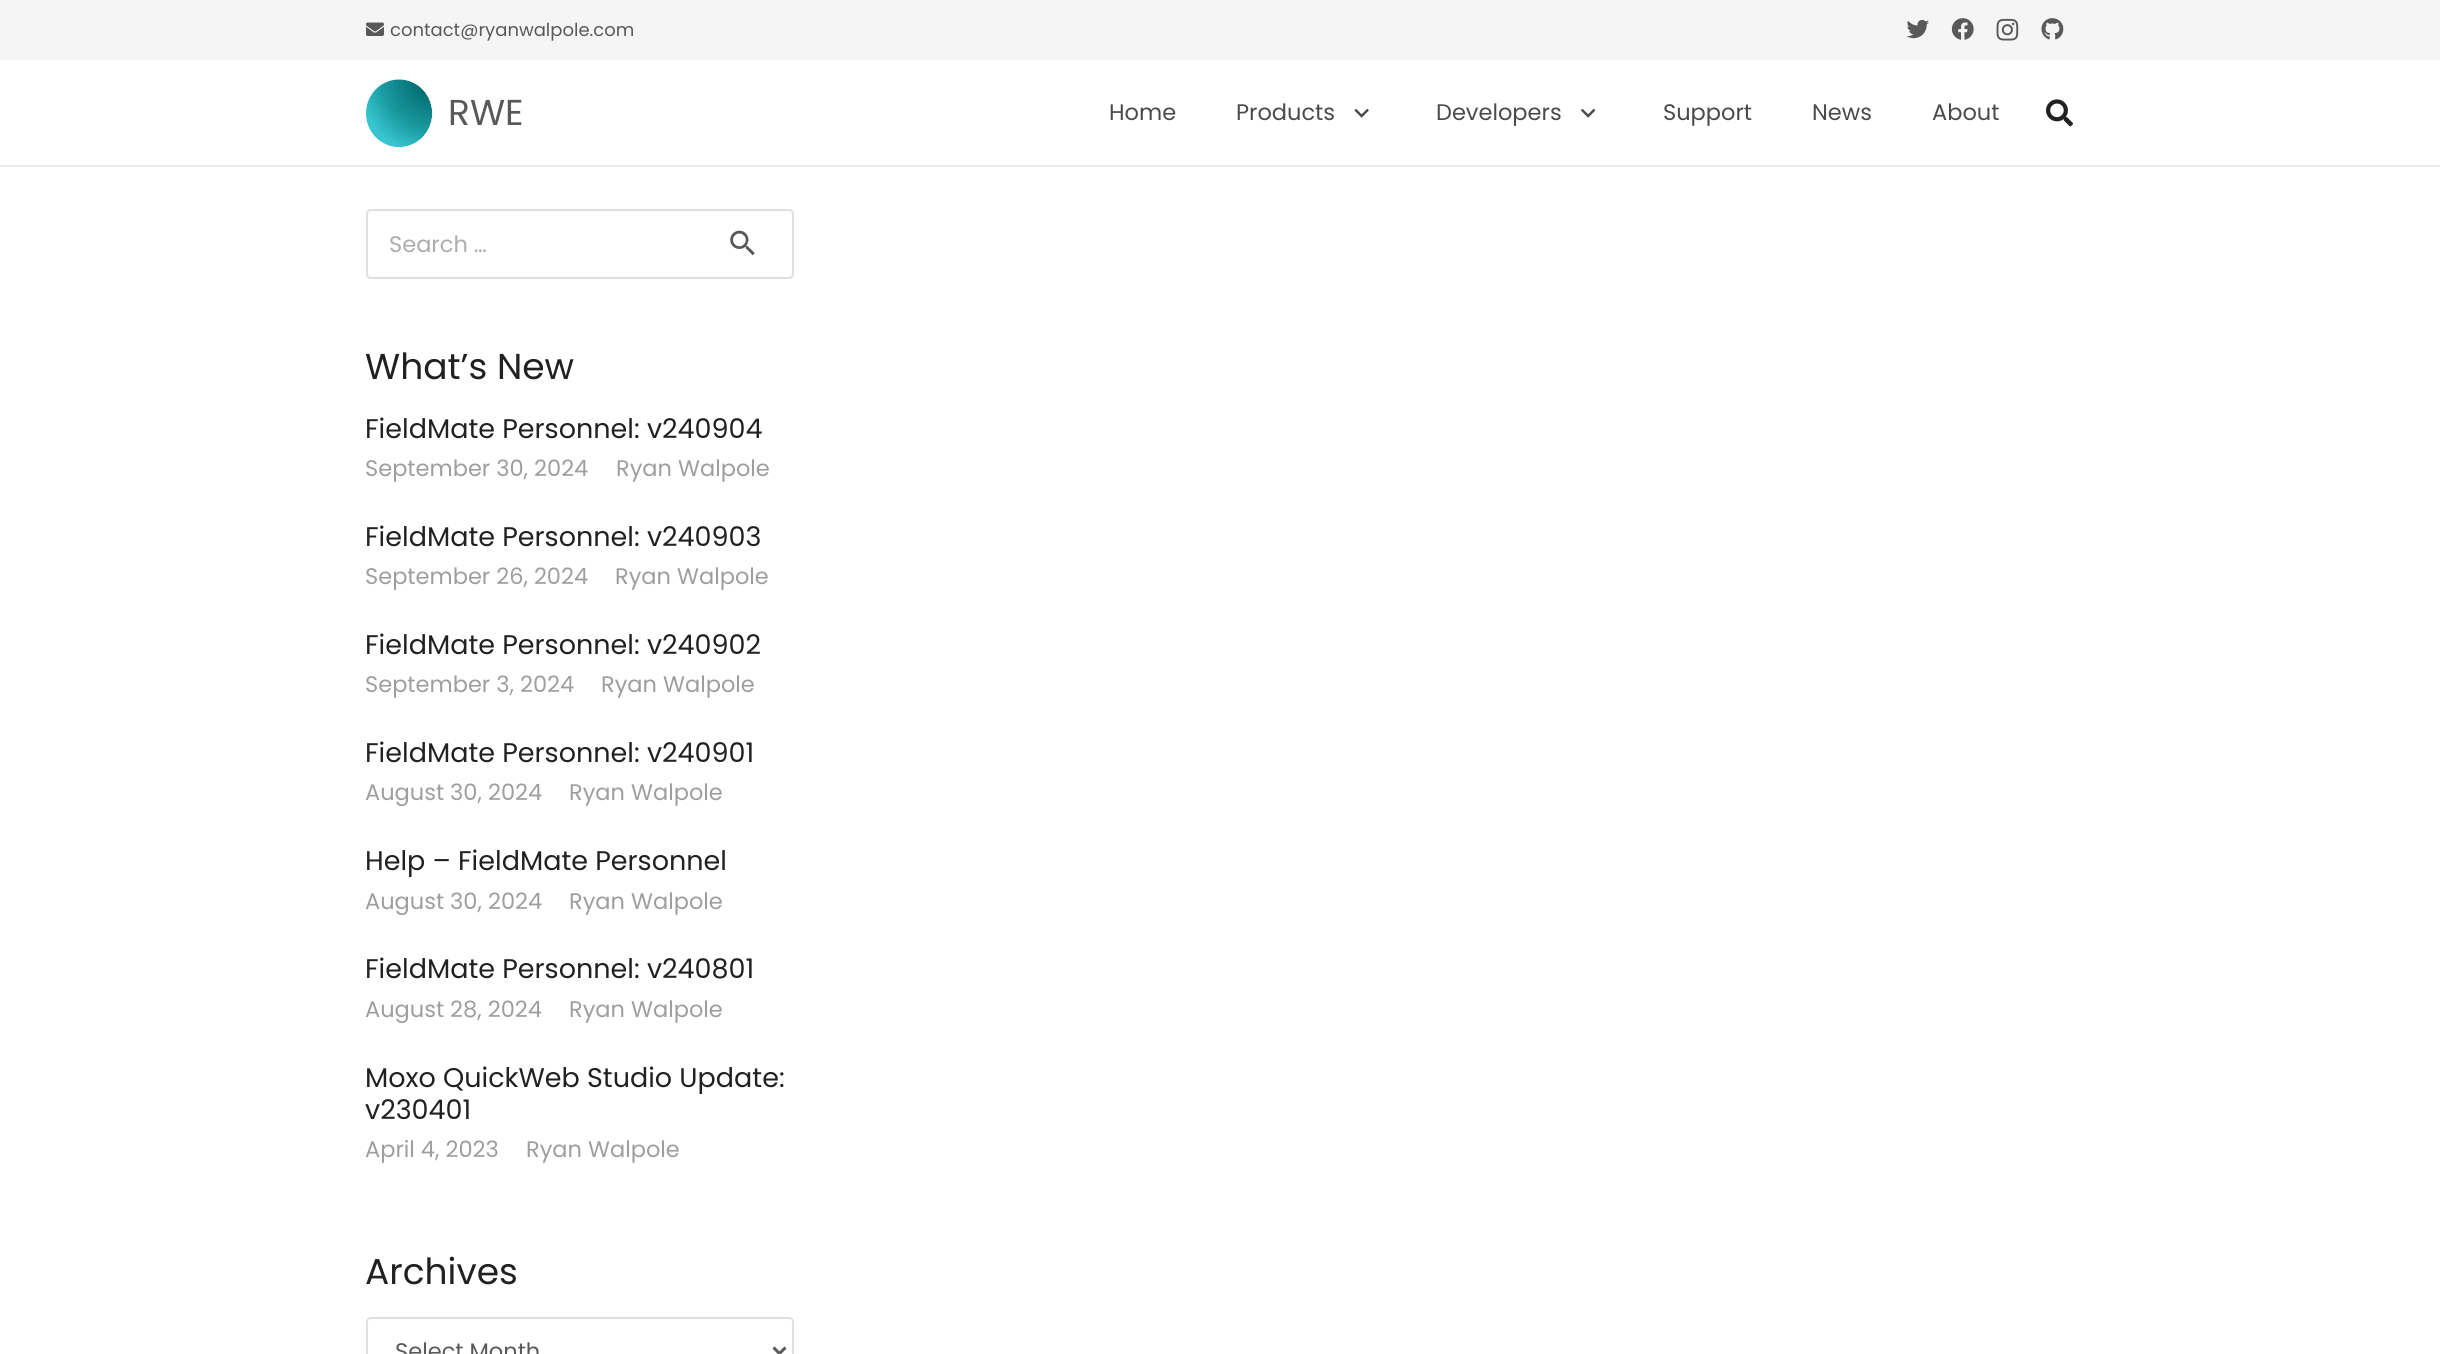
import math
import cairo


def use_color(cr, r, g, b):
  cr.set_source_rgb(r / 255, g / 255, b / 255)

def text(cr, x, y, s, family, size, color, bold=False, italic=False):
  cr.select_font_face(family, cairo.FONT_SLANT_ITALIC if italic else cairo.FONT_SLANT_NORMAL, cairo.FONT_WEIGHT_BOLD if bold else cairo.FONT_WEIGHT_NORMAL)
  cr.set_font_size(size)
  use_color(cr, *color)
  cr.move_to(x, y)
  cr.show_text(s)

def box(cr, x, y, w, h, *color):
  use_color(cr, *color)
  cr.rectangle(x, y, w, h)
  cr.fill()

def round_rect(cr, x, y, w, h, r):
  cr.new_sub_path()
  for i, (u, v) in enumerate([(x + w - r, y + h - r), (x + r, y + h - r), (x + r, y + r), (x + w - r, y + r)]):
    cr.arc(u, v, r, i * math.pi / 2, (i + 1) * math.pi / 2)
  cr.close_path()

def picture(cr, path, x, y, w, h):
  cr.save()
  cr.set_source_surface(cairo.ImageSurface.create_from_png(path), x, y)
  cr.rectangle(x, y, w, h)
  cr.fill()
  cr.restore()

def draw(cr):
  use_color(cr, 255, 255, 255)
  cr.paint()
  box(cr, 0, 0, 2440, 60, 245, 245, 245)
  picture(cr, "img_01.png", 366, 22, 18, 14)
  picture(cr, "img_02.png", 1906, 19, 23, 20)
  picture(cr, "img_03.png", 1951, 18, 23, 22)
  picture(cr, "img_04.png", 1996, 18, 23, 23)
  picture(cr, "img_05.png", 2041, 18, 23, 22)
  cr.set_source_rgba(0, 0, 0, 0.08)
  cr.new_path()
  cr.move_to(0, 165)
  cr.line_to(0, 167)
  cr.line_to(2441, 167)
  cr.line_to(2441, 62)
  cr.line_to(2440, 62)
  cr.line_to(2440, 165)
  cr.close_path()
  cr.fill()
  picture(cr, "img_06.png", 366, 79, 67, 68)
  picture(cr, "img_07.png", 1354, 108, 15, 10)
  picture(cr, "img_08.png", 1580, 108, 16, 10)
  picture(cr, "img_09.png", 2046, 99, 27, 28)
  round_rect(cr, 367, 210, 426, 68, 4)
  use_color(cr, 224, 224, 224)
  cr.stroke()
  picture(cr, "img_10.png", 730, 230, 25, 26)
  round_rect(cr, 367, 1318, 426, 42, 4)
  cr.stroke()
  cr.new_path()
  cr.move_to(773.5, 1347.5)
  cr.line_to(779.5, 1353.5)
  cr.line_to(785.5, 1347.5)
  use_color(cr, 89, 89, 89)
  cr.set_line_width(3)
  cr.stroke()
  text(cr, 390, 36, "contact@ryanwalpole.com", "Poppins", 18, (89, 89, 89))
  text(cr, 448, 125, "RWE", "Poppins", 36, (89, 89, 89))
  text(cr, 1109, 120, "Home", "Poppins", 22.5, (74, 74, 74))
  text(cr, 1236, 120, "Products", "Poppins", 22.5, (74, 74, 74))
  text(cr, 1436, 120, "Developers", "Poppins", 22.5, (74, 74, 74))
  text(cr, 1663, 120, "Support", "Poppins", 22.5, (74, 74, 74))
  text(cr, 1812, 120, "News", "Poppins", 22.5, (74, 74, 74))
  text(cr, 1932, 120, "About", "Poppins", 22.5, (74, 74, 74))
  text(cr, 389, 252, "Search …", "Poppins", 22.5, (172, 172, 172))
  text(cr, 365, 379, "What’s New", "Poppins", 36, (33, 33, 33))
  text(cr, 365, 438, "FieldMate Personnel: v240904", "Poppins", 27, (33, 33, 33))
  text(cr, 365, 476, "September 30, 2024", "Poppins", 22.5, (158, 158, 158))
  text(cr, 616, 476, "Ryan Walpole", "Poppins", 22.5, (158, 158, 158))
  text(cr, 365, 546, "FieldMate Personnel: v240903", "Poppins", 27, (33, 33, 33))
  text(cr, 365, 584, "September 26, 2024", "Poppins", 22.5, (158, 158, 158))
  text(cr, 615, 584, "Ryan Walpole", "Poppins", 22.5, (158, 158, 158))
  text(cr, 365, 654, "FieldMate Personnel: v240902", "Poppins", 27, (33, 33, 33))
  text(cr, 365, 692, "September 3, 2024", "Poppins", 22.5, (158, 158, 158))
  text(cr, 601, 692, "Ryan Walpole", "Poppins", 22.5, (158, 158, 158))
  text(cr, 365, 762, "FieldMate Personnel: v240901", "Poppins", 27, (33, 33, 33))
  text(cr, 365, 800, "August 30, 2024", "Poppins", 22.5, (158, 158, 158))
  text(cr, 569, 800, "Ryan Walpole", "Poppins", 22.5, (158, 158, 158))
  text(cr, 365, 870, "Help – FieldMate Personnel", "Poppins", 27, (33, 33, 33))
  text(cr, 365, 909, "August 30, 2024", "Poppins", 22.5, (158, 158, 158))
  text(cr, 569, 909, "Ryan Walpole", "Poppins", 22.5, (158, 158, 158))
  text(cr, 365, 978, "FieldMate Personnel: v240801", "Poppins", 27, (33, 33, 33))
  text(cr, 365, 1017, "August 28, 2024", "Poppins", 22.5, (158, 158, 158))
  text(cr, 569, 1017, "Ryan Walpole", "Poppins", 22.5, (158, 158, 158))
  text(cr, 365, 1087, "Moxo QuickWeb Studio Update:", "Poppins", 27, (33, 33, 33))
  text(cr, 365, 1119, "v230401", "Poppins", 27, (33, 33, 33))
  text(cr, 365, 1157, "April 4, 2023", "Poppins", 22.5, (158, 158, 158))
  text(cr, 526, 1157, "Ryan Walpole", "Poppins", 22.5, (158, 158, 158))
  text(cr, 365, 1284, "Archives", "Poppins", 36, (33, 33, 33))
  text(cr, 395, 1359, "Select Month", "Poppins", 22.5, (89, 89, 89))


surface = cairo.ImageSurface(cairo.FORMAT_RGB24, 2440, 1354)
cr = cairo.Context(surface)
options = cairo.FontOptions()
options.set_hint_metrics(cairo.HINT_METRICS_OFF)
options.set_hint_style(cairo.HINT_STYLE_NONE)
cr.set_font_options(options)
cr.set_miter_limit(4)
draw(cr)
surface.write_to_png("out.png")
